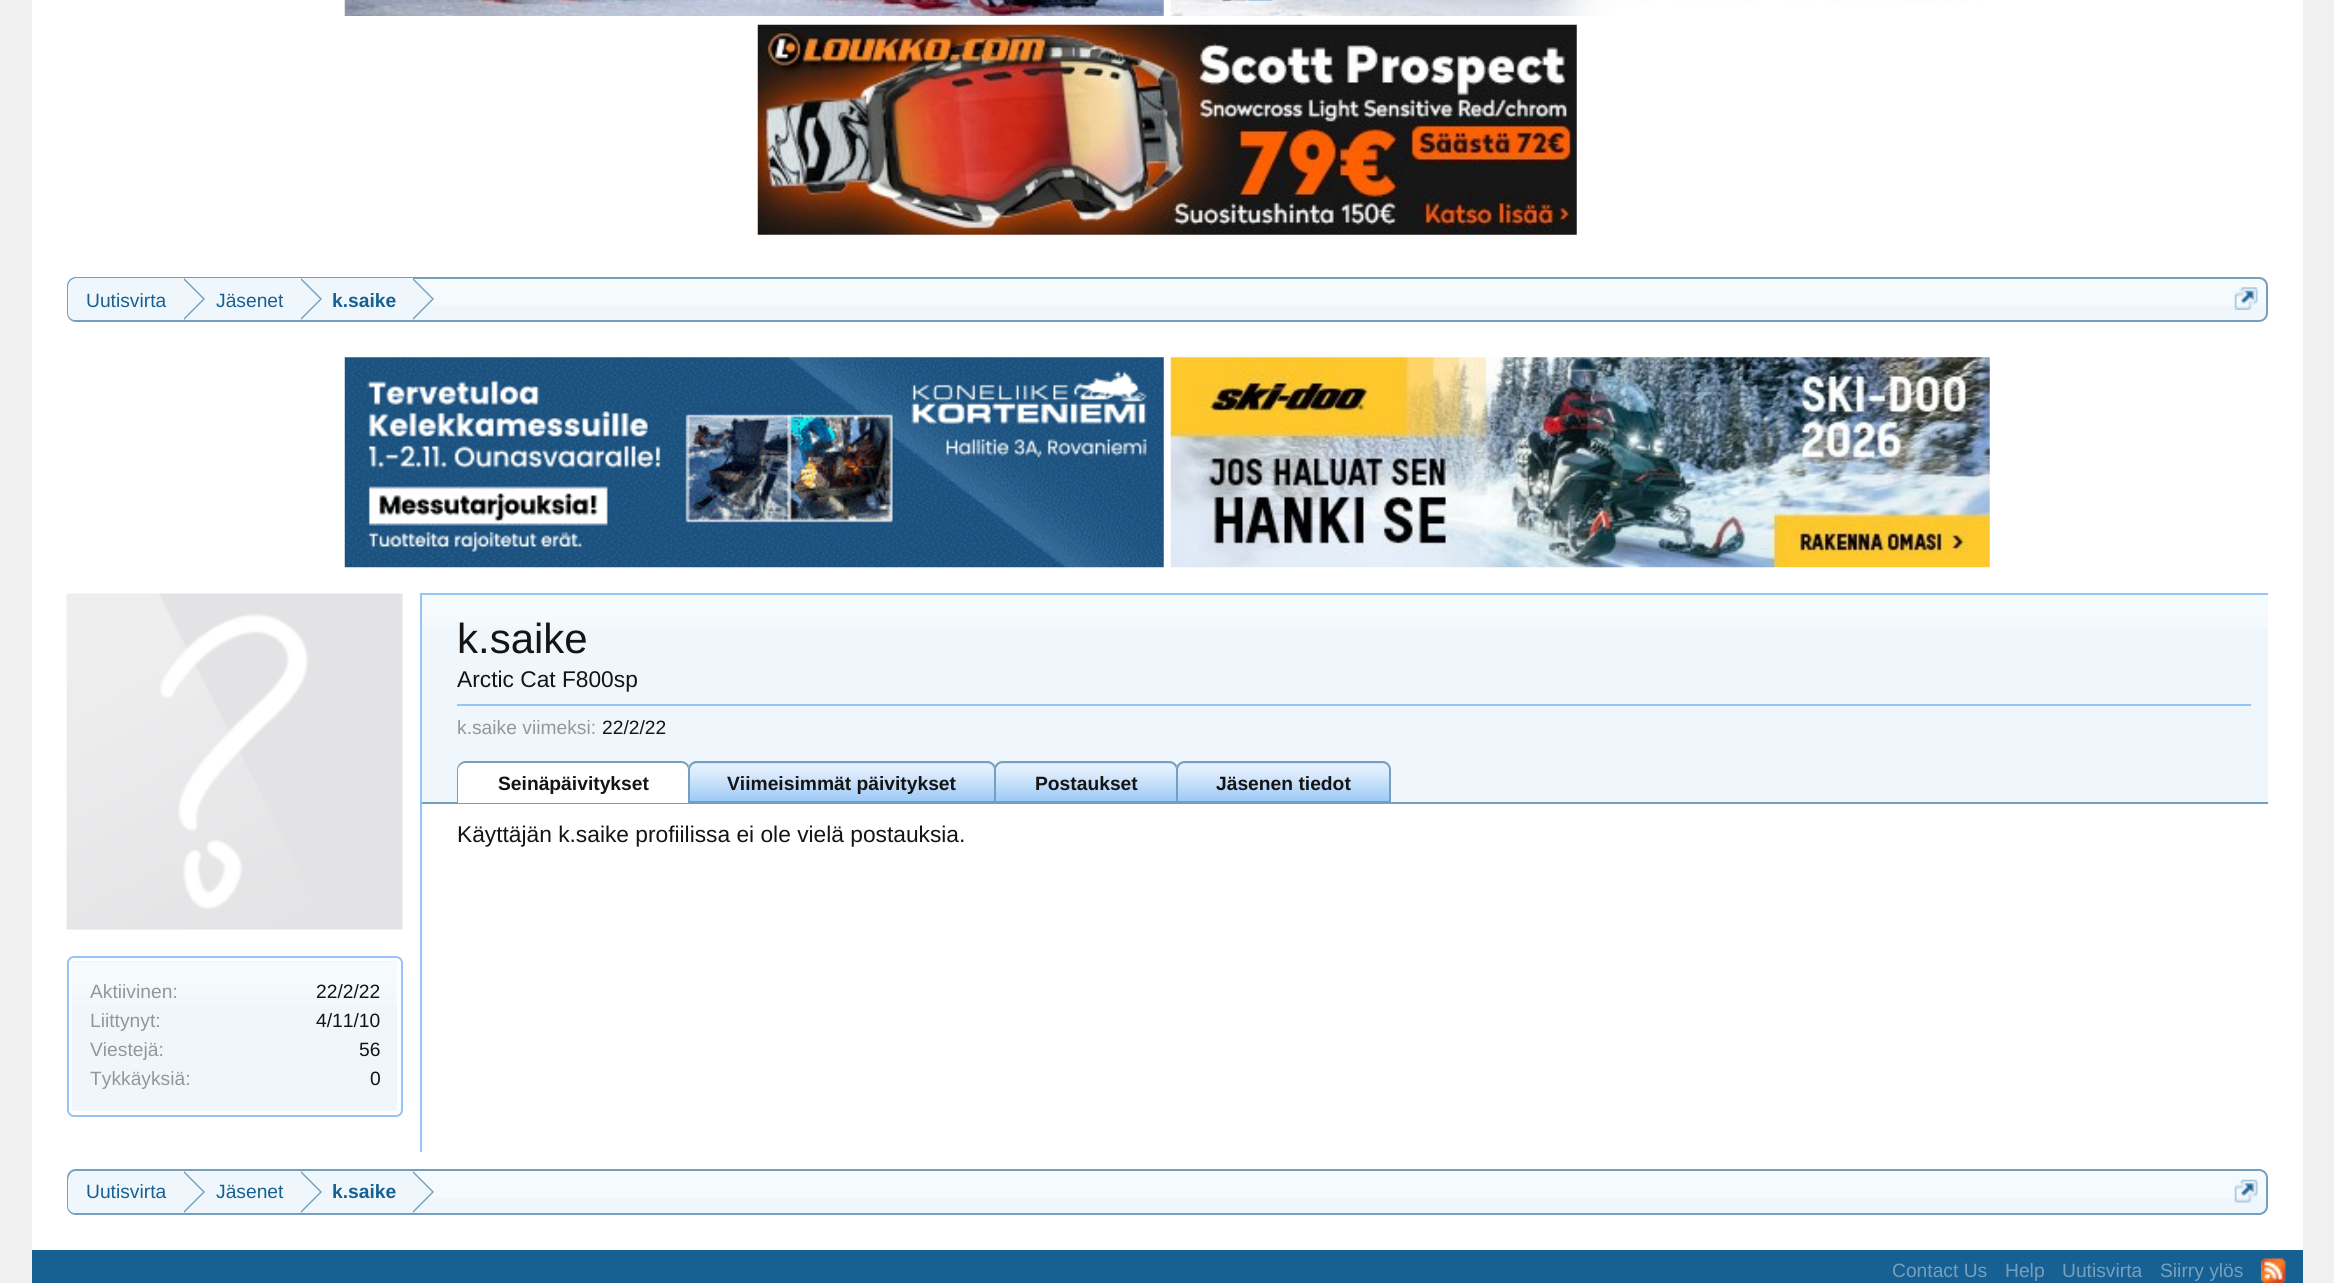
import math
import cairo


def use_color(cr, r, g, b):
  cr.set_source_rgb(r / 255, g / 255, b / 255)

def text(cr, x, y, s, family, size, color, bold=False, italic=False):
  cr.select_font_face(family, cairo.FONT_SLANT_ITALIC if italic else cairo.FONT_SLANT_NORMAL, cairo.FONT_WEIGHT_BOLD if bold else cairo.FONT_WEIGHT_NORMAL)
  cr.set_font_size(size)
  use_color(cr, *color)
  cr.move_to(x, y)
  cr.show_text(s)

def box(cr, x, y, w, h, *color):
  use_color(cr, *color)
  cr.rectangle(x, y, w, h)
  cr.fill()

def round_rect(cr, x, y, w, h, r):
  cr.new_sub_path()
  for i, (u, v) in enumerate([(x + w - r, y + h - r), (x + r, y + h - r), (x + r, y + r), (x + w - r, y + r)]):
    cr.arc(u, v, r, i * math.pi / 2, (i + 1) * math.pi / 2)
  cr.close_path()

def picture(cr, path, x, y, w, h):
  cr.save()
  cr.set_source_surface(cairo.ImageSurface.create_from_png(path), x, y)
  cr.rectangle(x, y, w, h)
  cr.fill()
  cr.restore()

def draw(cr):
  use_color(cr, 240, 240, 240)
  cr.paint()
  box(cr, 32, 0, 2271, 1250, 255, 255, 255)
  picture(cr, "img_01.png", 344, 0, 820, 16)
  picture(cr, "img_02.png", 1170, 0, 812, 16)
  picture(cr, "img_03.png", 757, 24, 820, 211)
  use_color(cr, 240, 247, 252)
  round_rect(cr, 67, 277, 2201, 45, 9)
  cr.fill()
  picture(cr, "img_04.png", 67, 279, 2201, 27)
  round_rect(cr, 68, 278, 2199, 43, 8)
  use_color(cr, 117, 160, 189)
  cr.stroke()
  cr.save()
  round_rect(cr, 68, 278, 2198, 42, 7)
  cr.clip()
  use_color(cr, 240, 247, 252)
  cr.new_path()
  cr.move_to(77, 278)
  cr.line_to(184, 278)
  cr.line_to(184, 322)
  cr.line_to(77, 322)
  cr.curve_to(72, 322, 68, 318, 68, 313)
  cr.line_to(68, 287)
  cr.curve_to(68, 282, 72, 278, 77, 278)
  cr.close_path()
  cr.fill()
  cr.restore()
  box(cr, 184, 278, 229, 28, 240, 247, 252)
  use_color(cr, 117, 160, 189)
  cr.new_path()
  cr.move_to(184, 320)
  cr.line_to(184, 278)
  cr.line_to(205, 299)
  cr.close_path()
  cr.fill()
  use_color(cr, 240, 247, 252)
  cr.new_path()
  cr.move_to(182, 320)
  cr.line_to(182, 278)
  cr.line_to(203, 299)
  cr.close_path()
  cr.fill()
  use_color(cr, 117, 160, 189)
  cr.new_path()
  cr.move_to(301, 320)
  cr.line_to(301, 278)
  cr.line_to(322, 299)
  cr.close_path()
  cr.fill()
  use_color(cr, 240, 247, 252)
  cr.new_path()
  cr.move_to(299, 320)
  cr.line_to(299, 278)
  cr.line_to(320, 299)
  cr.close_path()
  cr.fill()
  use_color(cr, 117, 160, 189)
  cr.new_path()
  cr.move_to(413, 320)
  cr.line_to(413, 278)
  cr.line_to(434, 299)
  cr.close_path()
  cr.fill()
  use_color(cr, 240, 247, 252)
  cr.new_path()
  cr.move_to(411, 320)
  cr.line_to(411, 278)
  cr.line_to(432, 299)
  cr.close_path()
  cr.fill()
  picture(cr, "img_05.png", 2234, 287, 24, 23)
  picture(cr, "img_06.png", 344, 357, 820, 211)
  picture(cr, "img_07.png", 1170, 357, 820, 211)
  box(cr, 422, 593, 1846, 2, 149, 197, 246)
  box(cr, 422, 595, 1846, 207, 240, 247, 252)
  picture(cr, "img_08.png", 422, 595, 1846, 33)
  box(cr, 457, 704, 1794, 2, 149, 197, 246)
  box(cr, 422, 802, 1846, 2, 117, 160, 189)
  use_color(cr, 255, 255, 255)
  cr.new_path()
  cr.move_to(466, 761)
  cr.line_to(681, 761)
  cr.curve_to(686, 761, 690, 765, 690, 770)
  cr.line_to(690, 803)
  cr.line_to(457, 803)
  cr.line_to(457, 770)
  cr.curve_to(457, 765, 461, 761, 466, 761)
  cr.close_path()
  cr.fill()
  use_color(cr, 117, 160, 189)
  cr.set_fill_rule(cairo.FILL_RULE_EVEN_ODD)
  cr.new_path()
  cr.move_to(466, 761)
  cr.line_to(681, 761)
  cr.curve_to(686, 761, 690, 765, 690, 770)
  cr.line_to(690, 803)
  cr.line_to(457, 803)
  cr.line_to(457, 770)
  cr.curve_to(457, 765, 461, 761, 466, 761)
  cr.close_path()
  cr.move_to(466, 763)
  cr.line_to(681, 763)
  cr.curve_to(685, 763, 688, 766, 688, 770)
  cr.line_to(688, 803)
  cr.line_to(458, 803)
  cr.line_to(458, 770)
  cr.curve_to(458, 766, 462, 763, 466, 763)
  cr.close_path()
  cr.fill()
  use_color(cr, 149, 197, 246)
  cr.new_path()
  cr.move_to(697, 761)
  cr.line_to(987, 761)
  cr.curve_to(992, 761, 996, 765, 996, 770)
  cr.line_to(996, 803)
  cr.line_to(688, 803)
  cr.line_to(688, 770)
  cr.curve_to(688, 765, 692, 761, 697, 761)
  cr.close_path()
  cr.fill()
  picture(cr, "img_09.png", 688, 763, 307, 38)
  cr.new_path()
  cr.move_to(697, 762)
  cr.line_to(987, 762)
  cr.curve_to(991.5, 762, 995, 765.5, 995, 770)
  cr.line_to(995, 802)
  cr.line_to(689, 802)
  cr.line_to(689, 770)
  cr.curve_to(689, 765.5, 692.5, 762, 697, 762)
  cr.close_path()
  use_color(cr, 117, 160, 189)
  cr.stroke()
  use_color(cr, 149, 197, 246)
  cr.new_path()
  cr.move_to(1003, 761)
  cr.line_to(1169, 761)
  cr.curve_to(1174, 761, 1178, 765, 1178, 770)
  cr.line_to(1178, 803)
  cr.line_to(994, 803)
  cr.line_to(994, 770)
  cr.curve_to(994, 765, 998, 761, 1003, 761)
  cr.close_path()
  cr.fill()
  picture(cr, "img_10.png", 994, 763, 183, 38)
  cr.new_path()
  cr.move_to(1003, 762)
  cr.line_to(1169, 762)
  cr.curve_to(1173.5, 762, 1177, 765.5, 1177, 770)
  cr.line_to(1177, 802)
  cr.line_to(995, 802)
  cr.line_to(995, 770)
  cr.curve_to(995, 765.5, 998.5, 762, 1003, 762)
  cr.close_path()
  use_color(cr, 117, 160, 189)
  cr.stroke()
  use_color(cr, 149, 197, 246)
  cr.new_path()
  cr.move_to(1185, 761)
  cr.line_to(1382, 761)
  cr.curve_to(1387, 761, 1391, 765, 1391, 770)
  cr.line_to(1391, 803)
  cr.line_to(1176, 803)
  cr.line_to(1176, 770)
  cr.curve_to(1176, 765, 1180, 761, 1185, 761)
  cr.close_path()
  cr.fill()
  picture(cr, "img_11.png", 1176, 763, 215, 38)
  cr.new_path()
  cr.move_to(1185, 762)
  cr.line_to(1382, 762)
  cr.curve_to(1386.5, 762, 1390, 765.5, 1390, 770)
  cr.line_to(1390, 802)
  cr.line_to(1177, 802)
  cr.line_to(1177, 770)
  cr.curve_to(1177, 765.5, 1180.5, 762, 1185, 762)
  cr.close_path()
  use_color(cr, 117, 160, 189)
  cr.stroke()
  box(cr, 420, 593, 2, 559, 149, 197, 246)
  picture(cr, "img_12.png", 66, 593, 337, 337)
  round_rect(cr, 68, 957, 334, 159, 6)
  cr.stroke()
  box(cr, 72, 961, 325, 150, 240, 247, 252)
  picture(cr, "img_13.png", 72, 962, 325, 41)
  round_rect(cr, 67, 1169, 2201, 46, 9)
  cr.fill()
  picture(cr, "img_14.png", 67, 1171, 2201, 27)
  round_rect(cr, 68, 1170, 2199, 44, 8)
  use_color(cr, 117, 160, 189)
  cr.stroke()
  cr.save()
  cr.set_fill_rule(cairo.FILL_RULE_WINDING)
  round_rect(cr, 68, 1171, 2198, 42, 7)
  cr.clip()
  use_color(cr, 240, 247, 252)
  cr.new_path()
  cr.move_to(77, 1171)
  cr.line_to(184, 1171)
  cr.line_to(184, 1215)
  cr.line_to(77, 1215)
  cr.curve_to(72, 1215, 68, 1211, 68, 1206)
  cr.line_to(68, 1180)
  cr.curve_to(68, 1175, 72, 1171, 77, 1171)
  cr.close_path()
  cr.fill()
  cr.restore()
  box(cr, 184, 1171, 229, 27, 240, 247, 252)
  use_color(cr, 117, 160, 189)
  cr.set_fill_rule(cairo.FILL_RULE_WINDING)
  cr.new_path()
  cr.move_to(184, 1213)
  cr.line_to(184, 1171)
  cr.line_to(205, 1192)
  cr.close_path()
  cr.fill()
  use_color(cr, 240, 247, 252)
  cr.new_path()
  cr.move_to(182, 1213)
  cr.line_to(182, 1171)
  cr.line_to(203, 1192)
  cr.close_path()
  cr.fill()
  use_color(cr, 117, 160, 189)
  cr.new_path()
  cr.move_to(301, 1213)
  cr.line_to(301, 1171)
  cr.line_to(322, 1192)
  cr.close_path()
  cr.fill()
  use_color(cr, 240, 247, 252)
  cr.new_path()
  cr.move_to(299, 1213)
  cr.line_to(299, 1171)
  cr.line_to(320, 1192)
  cr.close_path()
  cr.fill()
  use_color(cr, 117, 160, 189)
  cr.new_path()
  cr.move_to(413, 1213)
  cr.line_to(413, 1171)
  cr.line_to(434, 1192)
  cr.close_path()
  cr.fill()
  use_color(cr, 240, 247, 252)
  cr.new_path()
  cr.move_to(411, 1213)
  cr.line_to(411, 1171)
  cr.line_to(432, 1192)
  cr.close_path()
  cr.fill()
  picture(cr, "img_15.png", 2234, 1179, 24, 24)
  box(cr, 32, 1250, 2271, 33, 23, 96, 147)
  picture(cr, "img_16.png", 2261, 1258, 25, 25)
  text(cr, 86, 307, "Uutisvirta", "Liberation Sans", 19.25, (23, 96, 147))
  text(cr, 216, 307, "Jäsenet", "Liberation Sans", 19.25, (23, 96, 147))
  text(cr, 332, 307, "k.saike", "Liberation Sans", 19.25, (23, 96, 147), bold=True)
  text(cr, 457, 653, "k.saike", "Liberation Sans", 42, (20, 20, 20))
  text(cr, 457, 687, "Arctic Cat F800sp", "Liberation Sans", 22.75, (20, 20, 20))
  text(cr, 457, 734, "k.saike viimeksi:", "Liberation Sans", 19.25, (150, 150, 150))
  text(cr, 602, 734, "22/2/22", "Liberation Sans", 19.25, (20, 20, 20))
  text(cr, 498, 790, "Seinäpäivitykset", "Liberation Sans", 19.25, (20, 20, 20), bold=True)
  text(cr, 727, 790, "Viimeisimmät päivitykset", "Liberation Sans", 19.25, (20, 20, 20), bold=True)
  text(cr, 1035, 790, "Postaukset", "Liberation Sans", 19.25, (20, 20, 20), bold=True)
  text(cr, 1216, 790, "Jäsenen tiedot", "Liberation Sans", 19.25, (20, 20, 20), bold=True)
  text(cr, 457, 842, "Käyttäjän k.saike profiilissa ei ole vielä postauksia.", "Liberation Sans", 22.75, (20, 20, 20))
  text(cr, 90, 998, "Aktiivinen:", "Liberation Sans", 19.25, (150, 150, 150))
  text(cr, 316, 998, "22/2/22", "Liberation Sans", 19.25, (20, 20, 20))
  text(cr, 90, 1027, "Liittynyt:", "Liberation Sans", 19.25, (150, 150, 150))
  text(cr, 316, 1027, "4/11/10", "Liberation Sans", 19.25, (20, 20, 20))
  text(cr, 90, 1056, "Viestejä:", "Liberation Sans", 19.25, (150, 150, 150))
  text(cr, 359, 1056, "56", "Liberation Sans", 19.25, (20, 20, 20))
  text(cr, 90, 1085, "Tykkäyksiä:", "Liberation Sans", 19.25, (150, 150, 150))
  text(cr, 370, 1085, "0", "Liberation Sans", 19.25, (20, 20, 20))
  text(cr, 86, 1198, "Uutisvirta", "Liberation Sans", 19.25, (23, 96, 147))
  text(cr, 216, 1198, "Jäsenet", "Liberation Sans", 19.25, (23, 96, 147))
  text(cr, 332, 1198, "k.saike", "Liberation Sans", 19.25, (23, 96, 147), bold=True)
  text(cr, 1892, 1277, "Contact Us", "Liberation Sans", 19.25, (117, 160, 189))
  text(cr, 2005, 1277, "Help", "Liberation Sans", 19.25, (117, 160, 189))
  text(cr, 2062, 1277, "Uutisvirta", "Liberation Sans", 19.25, (117, 160, 189))
  text(cr, 2160, 1277, "Siirry ylös", "Liberation Sans", 19.25, (117, 160, 189))


surface = cairo.ImageSurface(cairo.FORMAT_RGB24, 2334, 1283)
cr = cairo.Context(surface)
options = cairo.FontOptions()
options.set_hint_metrics(cairo.HINT_METRICS_OFF)
options.set_hint_style(cairo.HINT_STYLE_NONE)
cr.set_font_options(options)
cr.set_miter_limit(4)
draw(cr)
surface.write_to_png("out.png")
